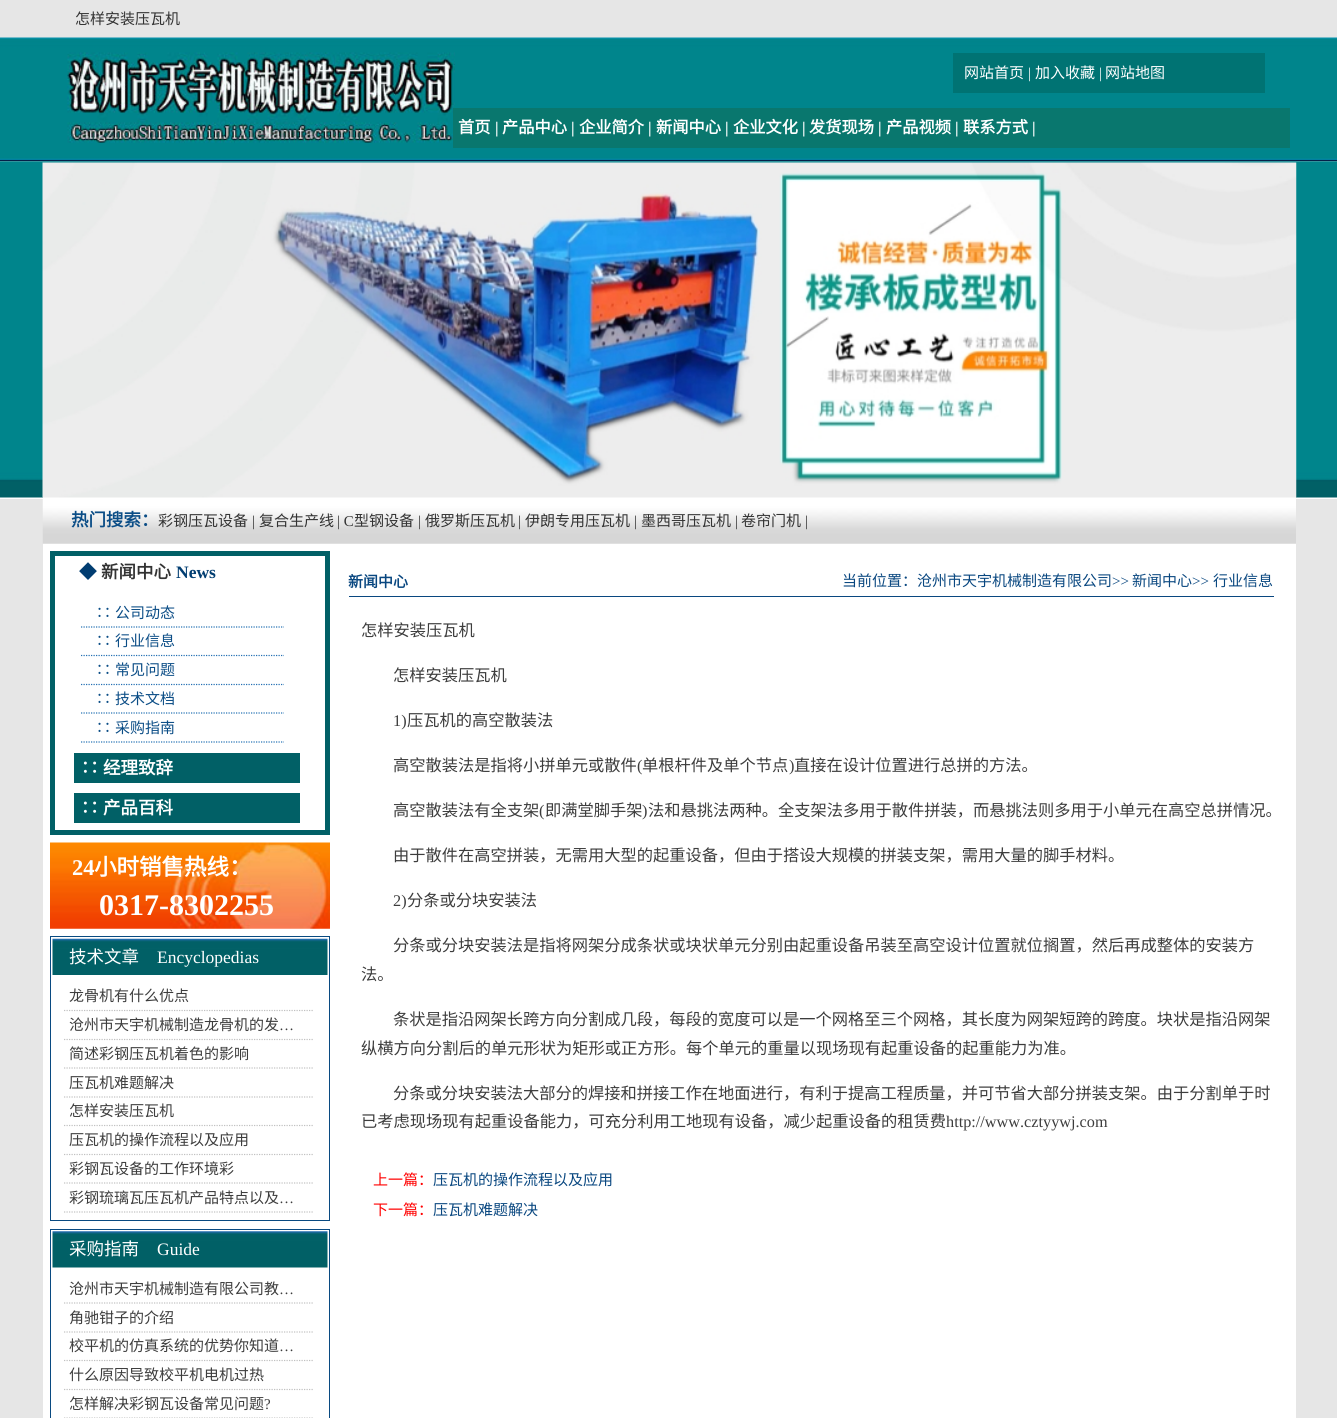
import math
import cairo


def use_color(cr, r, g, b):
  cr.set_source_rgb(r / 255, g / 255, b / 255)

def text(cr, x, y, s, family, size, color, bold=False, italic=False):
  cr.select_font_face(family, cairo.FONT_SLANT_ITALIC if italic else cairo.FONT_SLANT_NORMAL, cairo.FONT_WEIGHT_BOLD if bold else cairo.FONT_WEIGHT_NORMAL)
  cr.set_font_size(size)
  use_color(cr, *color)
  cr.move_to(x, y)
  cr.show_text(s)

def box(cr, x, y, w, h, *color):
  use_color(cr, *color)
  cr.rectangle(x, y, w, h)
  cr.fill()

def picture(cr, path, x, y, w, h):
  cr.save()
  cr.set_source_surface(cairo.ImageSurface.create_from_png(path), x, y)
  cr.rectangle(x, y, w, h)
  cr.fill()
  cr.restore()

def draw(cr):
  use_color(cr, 255, 255, 255)
  cr.paint()
  box(cr, 0, 0, 1337, 38, 230, 230, 230)
  picture(cr, "img_01.png", 0, 37, 1337, 125)
  picture(cr, "img_02.png", 67, 52, 388, 91)
  box(cr, 953, 53, 312, 40, 0, 115, 115)
  box(cr, 453, 108, 837, 40, 9, 119, 110)
  picture(cr, "img_03.png", 0, 161, 1337, 337)
  box(cr, 43, 497, 1253, 1, 255, 255, 255)
  picture(cr, "img_04.png", 42, 162, 1255, 336)
  box(cr, 0, 499, 1337, 919, 230, 230, 230)
  box(cr, 43, 543, 1253, 875, 255, 255, 255)
  picture(cr, "img_05.png", 42, 499, 1254, 45)
  box(cr, 50, 551, 280, 284, 1, 96, 102)
  box(cr, 55, 556, 270, 274, 255, 255, 255)
  cr.new_path()
  cr.move_to(81, 627)
  cr.line_to(284, 627)
  use_color(cr, 35, 112, 179)
  cr.set_line_width(1.2)
  cr.set_dash([1.25, 1.25])
  cr.stroke()
  cr.new_path()
  cr.move_to(81, 655.5)
  cr.line_to(284, 655.5)
  cr.stroke()
  cr.new_path()
  cr.move_to(81, 684.5)
  cr.line_to(284, 684.5)
  cr.stroke()
  cr.new_path()
  cr.move_to(81, 713)
  cr.line_to(284, 713)
  cr.stroke()
  cr.new_path()
  cr.move_to(81, 742)
  cr.line_to(284, 742)
  cr.stroke()
  box(cr, 74, 753, 226, 30, 1, 96, 102)
  box(cr, 74, 793, 226, 30, 1, 96, 102)
  picture(cr, "img_06.png", 50, 842, 280, 87)
  cr.rectangle(50.5, 936.5, 279, 284)
  use_color(cr, 9, 74, 129)
  cr.set_line_width(1)
  cr.set_dash([])
  cr.stroke()
  picture(cr, "img_07.png", 52, 938, 276, 37)
  cr.new_path()
  cr.move_to(64, 1010.5)
  cr.line_to(314, 1010.5)
  use_color(cr, 193, 193, 193)
  cr.set_line_width(1.2)
  cr.set_dash([1.25, 1.25])
  cr.stroke()
  cr.new_path()
  cr.move_to(64, 1039.5)
  cr.line_to(314, 1039.5)
  cr.stroke()
  cr.new_path()
  cr.move_to(64, 1068)
  cr.line_to(314, 1068)
  cr.stroke()
  cr.new_path()
  cr.move_to(64, 1097)
  cr.line_to(314, 1097)
  cr.stroke()
  cr.new_path()
  cr.move_to(64, 1125.5)
  cr.line_to(314, 1125.5)
  cr.stroke()
  cr.new_path()
  cr.move_to(64, 1154.5)
  cr.line_to(314, 1154.5)
  cr.stroke()
  cr.new_path()
  cr.move_to(64, 1183)
  cr.line_to(314, 1183)
  cr.stroke()
  cr.new_path()
  cr.move_to(64, 1212)
  cr.line_to(314, 1212)
  cr.stroke()
  cr.rectangle(50.5, 1229.5, 279, 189)
  use_color(cr, 9, 74, 129)
  cr.set_line_width(1)
  cr.set_dash([])
  cr.stroke()
  picture(cr, "img_08.png", 52, 1231, 276, 37)
  cr.new_path()
  cr.move_to(64, 1303)
  cr.line_to(314, 1303)
  use_color(cr, 193, 193, 193)
  cr.set_line_width(1.2)
  cr.set_dash([1.25, 1.25])
  cr.stroke()
  cr.new_path()
  cr.move_to(64, 1332)
  cr.line_to(314, 1332)
  cr.stroke()
  cr.new_path()
  cr.move_to(64, 1360.5)
  cr.line_to(314, 1360.5)
  cr.stroke()
  cr.new_path()
  cr.move_to(64, 1389.5)
  cr.line_to(314, 1389.5)
  cr.stroke()
  cr.new_path()
  cr.move_to(64, 1418)
  cr.line_to(314, 1418)
  cr.stroke()
  box(cr, 349, 596, 925, 1, 9, 71, 128)
  text(cr, 75, 24, "怎样安装压瓦机", "Noto Sans CJK SC", 15, (51, 51, 51))
  text(cr, 964, 78, "网站首页", "Noto Sans CJK SC", 15, (255, 255, 255))
  text(cr, 1028, 78, "|", "Liberation Serif", 15, (255, 255, 255))
  text(cr, 1035, 78, "加入收藏", "Noto Sans CJK SC", 15, (255, 255, 255))
  text(cr, 1099, 78, "|", "Liberation Serif", 15, (255, 255, 255))
  text(cr, 1105, 78, "网站地图", "Noto Sans CJK SC", 15, (255, 255, 255))
  text(cr, 458, 133, "首页", "Noto Sans CJK SC", 16.25, (255, 255, 255), bold=True)
  text(cr, 495, 133, "|", "Liberation Serif", 16.25, (255, 255, 255), bold=True)
  text(cr, 502, 133, "产品中心", "Noto Sans CJK SC", 16.25, (255, 255, 255), bold=True)
  text(cr, 571, 133, "|", "Liberation Serif", 16.25, (255, 255, 255), bold=True)
  text(cr, 579, 133, "企业简介", "Noto Sans CJK SC", 16.25, (255, 255, 255), bold=True)
  text(cr, 648, 133, "|", "Liberation Serif", 16.25, (255, 255, 255), bold=True)
  text(cr, 656, 133, "新闻中心", "Noto Sans CJK SC", 16.25, (255, 255, 255), bold=True)
  text(cr, 725, 133, "|", "Liberation Serif", 16.25, (255, 255, 255), bold=True)
  text(cr, 733, 133, "企业文化", "Noto Sans CJK SC", 16.25, (255, 255, 255), bold=True)
  text(cr, 802, 133, "|", "Liberation Serif", 16.25, (255, 255, 255), bold=True)
  text(cr, 809, 133, "发货现场", "Noto Sans CJK SC", 16.25, (255, 255, 255), bold=True)
  text(cr, 878, 133, "|", "Liberation Serif", 16.25, (255, 255, 255), bold=True)
  text(cr, 886, 133, "产品视频", "Noto Sans CJK SC", 16.25, (255, 255, 255), bold=True)
  text(cr, 955, 133, "|", "Liberation Serif", 16.25, (255, 255, 255), bold=True)
  text(cr, 963, 133, "联系方式", "Noto Sans CJK SC", 16.25, (255, 255, 255), bold=True)
  text(cr, 1032, 133, "|", "Liberation Serif", 16.25, (255, 255, 255), bold=True)
  text(cr, 71, 526, "热门搜索：", "Noto Sans CJK SC", 17.5, (11, 77, 134), bold=True)
  text(cr, 158, 526, "彩钢压瓦设备", "Noto Sans CJK SC", 15, (51, 51, 51))
  text(cr, 252, 526, "|", "Liberation Serif", 15, (51, 51, 51))
  text(cr, 259, 526, "复合生产线", "Noto Sans CJK SC", 15, (51, 51, 51))
  text(cr, 337, 526, "| C", "Liberation Serif", 15, (51, 51, 51))
  text(cr, 354, 526, "型钢设备", "Noto Sans CJK SC", 15, (51, 51, 51))
  text(cr, 418, 526, "|", "Liberation Serif", 15, (51, 51, 51))
  text(cr, 425, 526, "俄罗斯压瓦机", "Noto Sans CJK SC", 15, (51, 51, 51))
  text(cr, 518, 526, "|", "Liberation Serif", 15, (51, 51, 51))
  text(cr, 525, 526, "伊朗专用压瓦机", "Noto Sans CJK SC", 15, (51, 51, 51))
  text(cr, 634, 526, "|", "Liberation Serif", 15, (51, 51, 51))
  text(cr, 641, 526, "墨西哥压瓦机", "Noto Sans CJK SC", 15, (51, 51, 51))
  text(cr, 735, 526, "|", "Liberation Serif", 15, (51, 51, 51))
  text(cr, 741, 526, "卷帘门机", "Noto Sans CJK SC", 15, (51, 51, 51))
  text(cr, 805, 526, "|", "Liberation Serif", 15, (51, 51, 51))
  text(cr, 79, 578, "◆", "Noto Sans CJK SC", 17.5, (1, 61, 113), bold=True)
  text(cr, 101, 578, "新闻中心", "Noto Sans CJK SC", 17.5, (51, 51, 51), bold=True)
  text(cr, 176, 578, "News", "Liberation Serif", 17.5, (1, 61, 113), bold=True)
  text(cr, 96, 618, "∷", "Noto Sans CJK SC", 15, (11, 77, 134))
  text(cr, 115, 618, "公司动态", "Noto Sans CJK SC", 15, (11, 77, 134))
  text(cr, 96, 646, "∷", "Noto Sans CJK SC", 15, (11, 77, 134))
  text(cr, 115, 646, "行业信息", "Noto Sans CJK SC", 15, (11, 77, 134))
  text(cr, 96, 675, "∷", "Noto Sans CJK SC", 15, (11, 77, 134))
  text(cr, 115, 675, "常见问题", "Noto Sans CJK SC", 15, (11, 77, 134))
  text(cr, 96, 704, "∷", "Noto Sans CJK SC", 15, (11, 77, 134))
  text(cr, 115, 704, "技术文档", "Noto Sans CJK SC", 15, (11, 77, 134))
  text(cr, 96, 733, "∷", "Noto Sans CJK SC", 15, (11, 77, 134))
  text(cr, 115, 733, "采购指南", "Noto Sans CJK SC", 15, (11, 77, 134))
  text(cr, 81, 774, "∷", "Noto Sans CJK SC", 17.5, (255, 255, 255), bold=True)
  text(cr, 103, 774, "经理致辞", "Noto Sans CJK SC", 17.5, (255, 255, 255), bold=True)
  text(cr, 81, 814, "∷", "Noto Sans CJK SC", 17.5, (255, 255, 255), bold=True)
  text(cr, 103, 814, "产品百科", "Noto Sans CJK SC", 17.5, (255, 255, 255), bold=True)
  text(cr, 72, 875, "24", "Liberation Serif", 22.5, (255, 255, 255), bold=True)
  text(cr, 94, 875, "小时销售热线：", "Noto Sans CJK SC", 22.5, (255, 255, 255), bold=True)
  text(cr, 99, 915, "0317-8302255", "Liberation Serif", 30, (255, 255, 255), bold=True)
  text(cr, 69, 963, "技术文章", "Noto Sans CJK SC", 17.5, (255, 255, 255))
  text(cr, 157, 963, "Encyclopedias", "Liberation Serif", 17.5, (255, 255, 255))
  text(cr, 69, 1001, "龙骨机有什么优点", "Noto Sans CJK SC", 15, (61, 61, 61))
  text(cr, 69, 1030, "沧州市天宇机械制造龙骨机的发", "Noto Sans CJK SC", 15, (61, 61, 61))
  text(cr, 279, 1030, "…", "Liberation Serif", 15, (61, 61, 61))
  text(cr, 69, 1059, "简述彩钢压瓦机着色的影响", "Noto Sans CJK SC", 15, (61, 61, 61))
  text(cr, 69, 1088, "压瓦机难题解决", "Noto Sans CJK SC", 15, (61, 61, 61))
  text(cr, 69, 1116, "怎样安装压瓦机", "Noto Sans CJK SC", 15, (61, 61, 61))
  text(cr, 69, 1145, "压瓦机的操作流程以及应用", "Noto Sans CJK SC", 15, (61, 61, 61))
  text(cr, 69, 1174, "彩钢瓦设备的工作环境彩", "Noto Sans CJK SC", 15, (61, 61, 61))
  text(cr, 69, 1203, "彩钢琉璃瓦压瓦机产品特点以及", "Noto Sans CJK SC", 15, (61, 61, 61))
  text(cr, 279, 1203, "…", "Liberation Serif", 15, (61, 61, 61))
  text(cr, 69, 1255, "采购指南", "Noto Sans CJK SC", 17.5, (255, 255, 255))
  text(cr, 157, 1255, "Guide", "Liberation Serif", 17.5, (255, 255, 255))
  text(cr, 69, 1294, "沧州市天宇机械制造有限公司教", "Noto Sans CJK SC", 15, (61, 61, 61))
  text(cr, 279, 1294, "…", "Liberation Serif", 15, (61, 61, 61))
  text(cr, 69, 1323, "角驰钳子的介绍", "Noto Sans CJK SC", 15, (61, 61, 61))
  text(cr, 69, 1351, "校平机的仿真系统的优势你知道", "Noto Sans CJK SC", 15, (61, 61, 61))
  text(cr, 279, 1351, "…", "Liberation Serif", 15, (61, 61, 61))
  text(cr, 69, 1380, "什么原因导致校平机电机过热", "Noto Sans CJK SC", 15, (61, 61, 61))
  text(cr, 69, 1409, "怎样解决彩钢瓦设备常见问题", "Noto Sans CJK SC", 15, (61, 61, 61))
  text(cr, 264, 1409, "?", "Liberation Serif", 15, (61, 61, 61))
  text(cr, 348, 587, "新闻中心", "Noto Sans CJK SC", 15, (9, 71, 128), bold=True)
  text(cr, 842, 586, "当前位置：沧州市天宇机械制造有限公司", "Noto Sans CJK SC", 15, (9, 71, 128))
  text(cr, 1112, 586, ">>", "Liberation Serif", 15, (9, 71, 128))
  text(cr, 1132, 586, "新闻中心", "Noto Sans CJK SC", 15, (9, 71, 128))
  text(cr, 1192, 586, ">>", "Liberation Serif", 15, (9, 71, 128))
  text(cr, 1213, 586, "行业信息", "Noto Sans CJK SC", 15, (9, 71, 128))
  text(cr, 361, 636, "怎样安装压瓦机", "Noto Sans CJK SC", 16.25, (61, 61, 61))
  text(cr, 393, 681, "怎样安装压瓦机", "Noto Sans CJK SC", 16.25, (61, 61, 61))
  text(cr, 393, 726, "1)", "Liberation Serif", 16.25, (61, 61, 61))
  text(cr, 407, 726, "压瓦机的高空散装法", "Noto Sans CJK SC", 16.25, (61, 61, 61))
  text(cr, 393, 771, "高空散装法是指将小拼单元或散件", "Noto Sans CJK SC", 16.25, (61, 61, 61))
  text(cr, 637, 771, "(", "Liberation Serif", 16.25, (61, 61, 61))
  text(cr, 642, 771, "单根杆件及单个节点", "Noto Sans CJK SC", 16.25, (61, 61, 61))
  text(cr, 789, 771, ")", "Liberation Serif", 16.25, (61, 61, 61))
  text(cr, 794, 771, "直接在设计位置进行总拼的方法。", "Noto Sans CJK SC", 16.25, (61, 61, 61))
  text(cr, 393, 816, "高空散装法有全支架", "Noto Sans CJK SC", 16.25, (61, 61, 61))
  text(cr, 539, 816, "(", "Liberation Serif", 16.25, (61, 61, 61))
  text(cr, 545, 816, "即满堂脚手架", "Noto Sans CJK SC", 16.25, (61, 61, 61))
  text(cr, 642, 816, ")", "Liberation Serif", 16.25, (61, 61, 61))
  text(cr, 648, 816, "法和悬挑法两种。全支架法多用于散件拼装，而悬挑法则多用于小单元在高空总拼情况。", "Noto Sans CJK SC", 16.25, (61, 61, 61))
  text(cr, 393, 861, "由于散件在高空拼装，无需用大型的起重设备，但由于搭设大规模的拼装支架，需用大量的脚手材料。", "Noto Sans CJK SC", 16.25, (61, 61, 61))
  text(cr, 393, 906, "2)", "Liberation Serif", 16.25, (61, 61, 61))
  text(cr, 407, 906, "分条或分块安装法", "Noto Sans CJK SC", 16.25, (61, 61, 61))
  text(cr, 393, 951, "分条或分块安装法是指将网架分成条状或块状单元分别由起重设备吊装至高空设计位置就位搁置，然后再成整体的安装方", "Noto Sans CJK SC", 16.25, (61, 61, 61))
  text(cr, 361, 980, "法。", "Noto Sans CJK SC", 16.25, (61, 61, 61))
  text(cr, 393, 1025, "条状是指沿网架长跨方向分割成几段，每段的宽度可以是一个网格至三个网格，其长度为网架短跨的跨度。块状是指沿网架", "Noto Sans CJK SC", 16.25, (61, 61, 61))
  text(cr, 361, 1054, "纵横方向分割后的单元形状为矩形或正方形。每个单元的重量以现场现有起重设备的起重能力为准。", "Noto Sans CJK SC", 16.25, (61, 61, 61))
  text(cr, 393, 1099, "分条或分块安装法大部分的焊接和拼接工作在地面进行，有利于提高工程质量，并可节省大部分拼装支架。由于分割单于时", "Noto Sans CJK SC", 16.25, (61, 61, 61))
  text(cr, 361, 1127, "已考虑现场现有起重设备能力，可充分利用工地现有设备，减少起重设备的租赁费", "Noto Sans CJK SC", 16.25, (61, 61, 61))
  text(cr, 946, 1127, "http://www.cztyywj.com", "Liberation Serif", 16.25, (61, 61, 61))
  text(cr, 373, 1185, "上一篇：", "Noto Sans CJK SC", 15, (255, 0, 0))
  text(cr, 433, 1185, "压瓦机的操作流程以及应用", "Noto Sans CJK SC", 15, (9, 71, 128))
  text(cr, 373, 1215, "下一篇：", "Noto Sans CJK SC", 15, (255, 0, 0))
  text(cr, 433, 1215, "压瓦机难题解决", "Noto Sans CJK SC", 15, (9, 71, 128))


surface = cairo.ImageSurface(cairo.FORMAT_RGB24, 1337, 1418)
cr = cairo.Context(surface)
options = cairo.FontOptions()
options.set_hint_metrics(cairo.HINT_METRICS_OFF)
options.set_hint_style(cairo.HINT_STYLE_NONE)
cr.set_font_options(options)
cr.set_miter_limit(4)
draw(cr)
surface.write_to_png("out.png")
